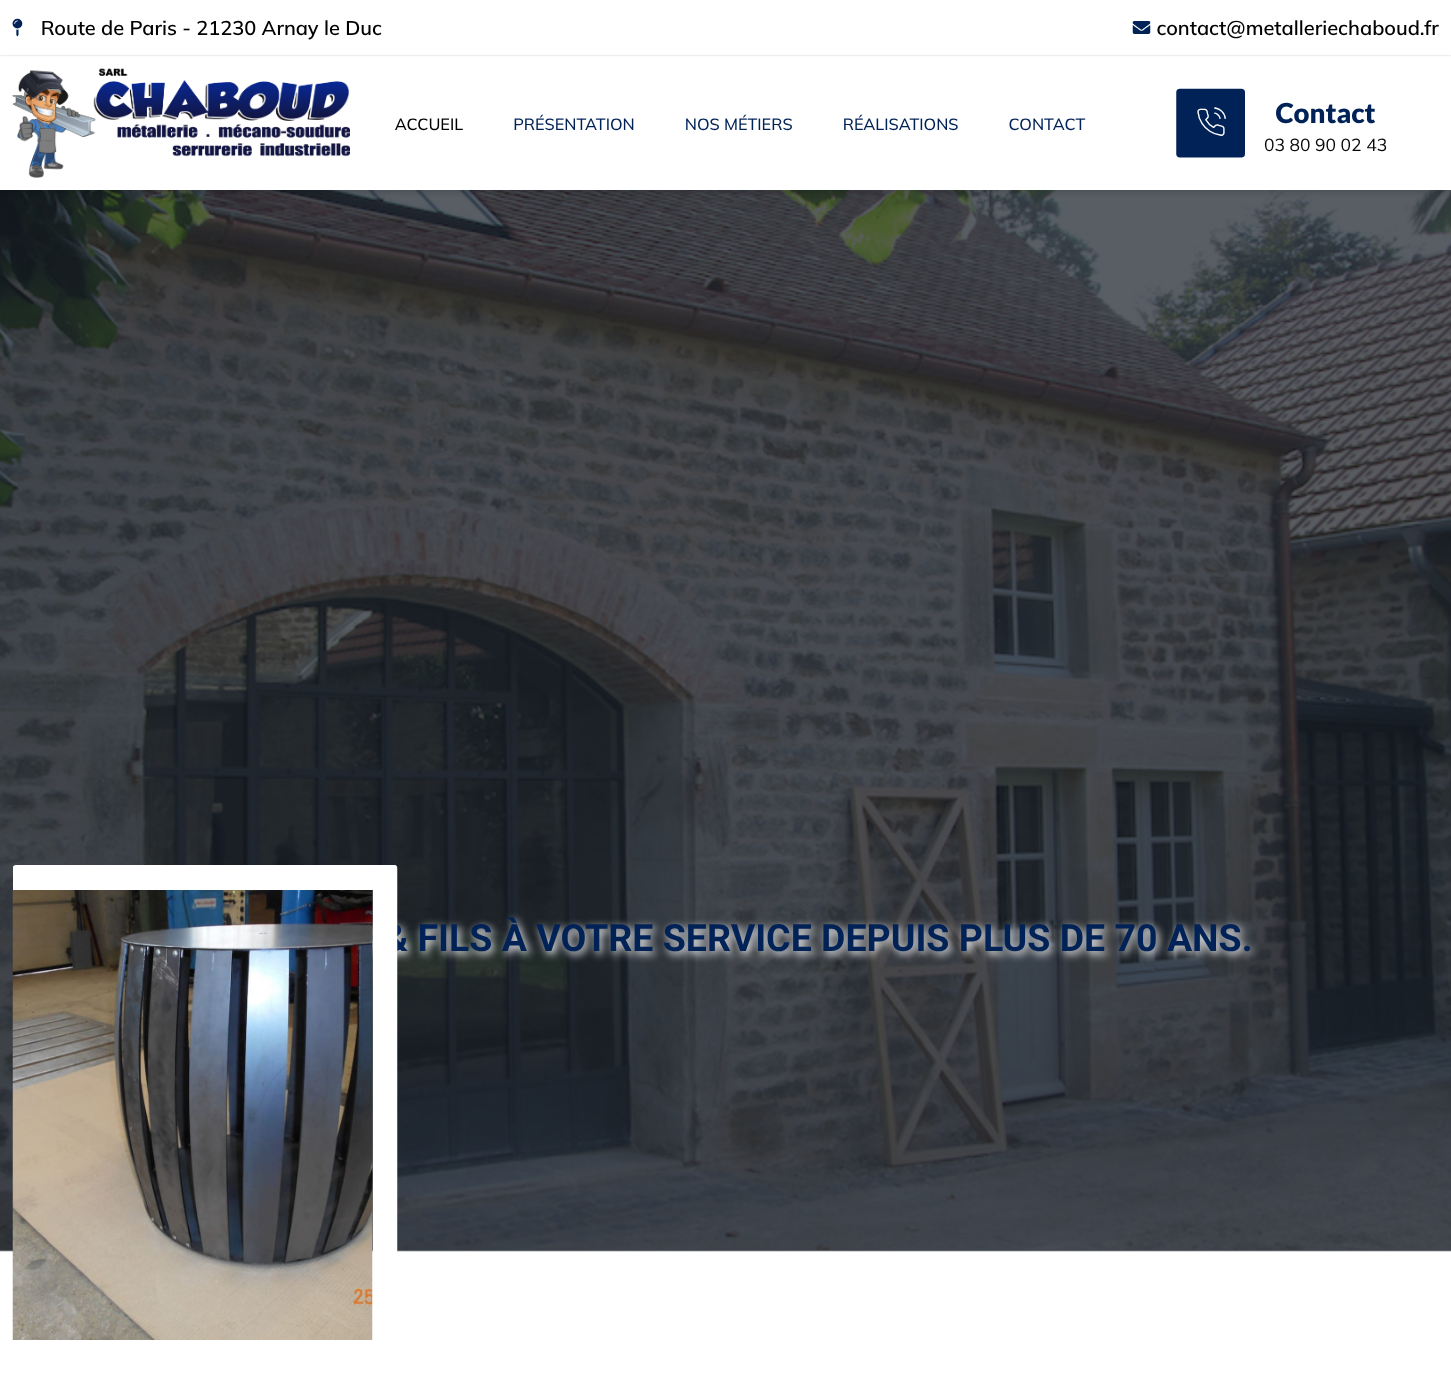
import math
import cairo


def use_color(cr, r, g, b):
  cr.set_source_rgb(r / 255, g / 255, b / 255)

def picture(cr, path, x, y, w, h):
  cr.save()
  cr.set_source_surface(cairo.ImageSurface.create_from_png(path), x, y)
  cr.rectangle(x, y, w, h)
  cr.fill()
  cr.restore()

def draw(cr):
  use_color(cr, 255, 255, 255)
  cr.paint()
  picture(cr, "img_01.png", 0, 0, 1451, 1387)


surface = cairo.ImageSurface(cairo.FORMAT_RGB24, 1451, 1387)
cr = cairo.Context(surface)
options = cairo.FontOptions()
options.set_hint_metrics(cairo.HINT_METRICS_OFF)
options.set_hint_style(cairo.HINT_STYLE_NONE)
cr.set_font_options(options)
cr.set_miter_limit(4)
draw(cr)
surface.write_to_png("out.png")
